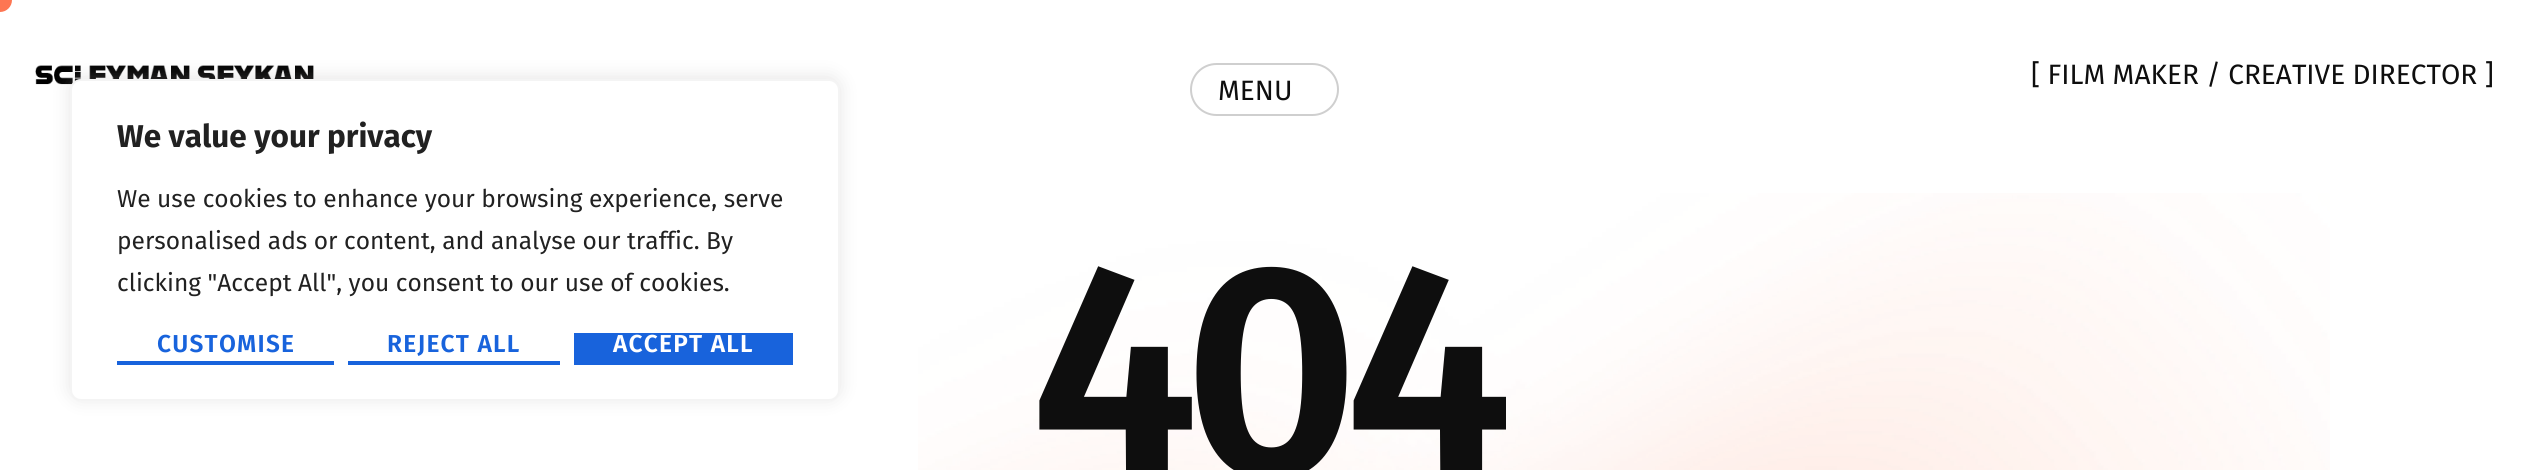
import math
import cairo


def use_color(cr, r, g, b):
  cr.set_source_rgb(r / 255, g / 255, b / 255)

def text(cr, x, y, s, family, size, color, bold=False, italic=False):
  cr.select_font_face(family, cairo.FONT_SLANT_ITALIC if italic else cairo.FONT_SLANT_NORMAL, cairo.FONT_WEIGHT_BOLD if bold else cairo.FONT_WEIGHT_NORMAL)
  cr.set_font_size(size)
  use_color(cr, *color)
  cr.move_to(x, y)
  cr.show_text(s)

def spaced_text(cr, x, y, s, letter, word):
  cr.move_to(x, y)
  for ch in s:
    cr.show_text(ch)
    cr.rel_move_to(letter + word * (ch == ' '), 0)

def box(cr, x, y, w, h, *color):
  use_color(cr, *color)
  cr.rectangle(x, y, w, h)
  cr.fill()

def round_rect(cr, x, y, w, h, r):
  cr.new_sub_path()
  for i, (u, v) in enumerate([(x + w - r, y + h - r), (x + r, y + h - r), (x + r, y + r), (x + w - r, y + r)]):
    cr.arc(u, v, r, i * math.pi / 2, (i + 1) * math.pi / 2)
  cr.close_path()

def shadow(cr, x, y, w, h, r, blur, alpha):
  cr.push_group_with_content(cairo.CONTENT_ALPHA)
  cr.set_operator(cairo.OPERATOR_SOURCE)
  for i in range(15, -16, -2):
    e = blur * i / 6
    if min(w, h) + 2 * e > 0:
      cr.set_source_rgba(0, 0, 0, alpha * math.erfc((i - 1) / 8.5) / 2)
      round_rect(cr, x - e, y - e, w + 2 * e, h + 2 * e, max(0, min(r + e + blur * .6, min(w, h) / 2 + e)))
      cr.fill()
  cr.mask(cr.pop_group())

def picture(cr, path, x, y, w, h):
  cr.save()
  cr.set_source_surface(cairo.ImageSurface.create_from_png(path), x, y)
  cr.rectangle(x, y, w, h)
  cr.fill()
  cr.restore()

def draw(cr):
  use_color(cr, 255, 255, 255)
  cr.paint()
  picture(cr, "img_01.png", 918, 193, 1412, 277)
  use_color(cr, 253, 118, 83)
  cr.arc(0, 0, 12, 0, 2 * math.pi)
  cr.fill()
  picture(cr, "img_02.png", 35, 65, 279, 20)
  round_rect(cr, 1191, 64, 147, 51, 25.5)
  use_color(cr, 207, 207, 207)
  cr.stroke()
  use_color(cr, 172, 171, 171)
  shadow(cr, 70, 77, 770, 322, 11, 9, 0.3)
  use_color(cr, 255, 255, 255)
  round_rect(cr, 71, 80, 768, 320, 10)
  cr.fill_preserve()
  use_color(cr, 244, 244, 244)
  cr.stroke()
  box(cr, 117, 361, 217, 4, 24, 99, 220)
  box(cr, 348, 361, 212, 4, 24, 99, 220)
  box(cr, 574, 333, 219, 32, 24, 99, 220)
  text(cr, 2031, 84, "[ FILM MAKER / CREATIVE DIRECTOR ]", "Fira Sans", 28, (14, 14, 14))
  text(cr, 1218, 100, "MENU", "Fira Sans", 28, (14, 14, 14))
  text(cr, 117, 147, "We value your privacy", "Fira Sans", 31.5, (33, 33, 33), bold=True)
  text(cr, 117, 207, "We use cookies to enhance your browsing experience, serve", "Fira Sans", 24.5, (33, 33, 33))
  text(cr, 117, 249, "personalised ads or content, and analyse our traffic. By", "Fira Sans", 24.5, (33, 33, 33))
  text(cr, 117, 291, "clicking \"Accept All\", you consent to our use of cookies.", "Fira Sans", 24.5, (33, 33, 33))
  cr.select_font_face("Fira Sans SemiBold")
  use_color(cr, 24, 99, 220)
  spaced_text(cr, 157, 352, "CUSTOMISE", 1.25, 0)
  spaced_text(cr, 387, 352, "REJECT ALL", 1.25, 0)
  use_color(cr, 255, 255, 255)
  spaced_text(cr, 613, 352, "ACCEPT ALL", 1.25, 0)
  cr.set_font_size(303)
  use_color(cr, 14, 14, 14)
  spaced_text(cr, 1030, 475, "404", -15, 0)


surface = cairo.ImageSurface(cairo.FORMAT_RGB24, 2528, 470)
cr = cairo.Context(surface)
options = cairo.FontOptions()
options.set_hint_metrics(cairo.HINT_METRICS_OFF)
options.set_hint_style(cairo.HINT_STYLE_NONE)
cr.set_font_options(options)
cr.set_miter_limit(4)
draw(cr)
surface.write_to_png("out.png")
